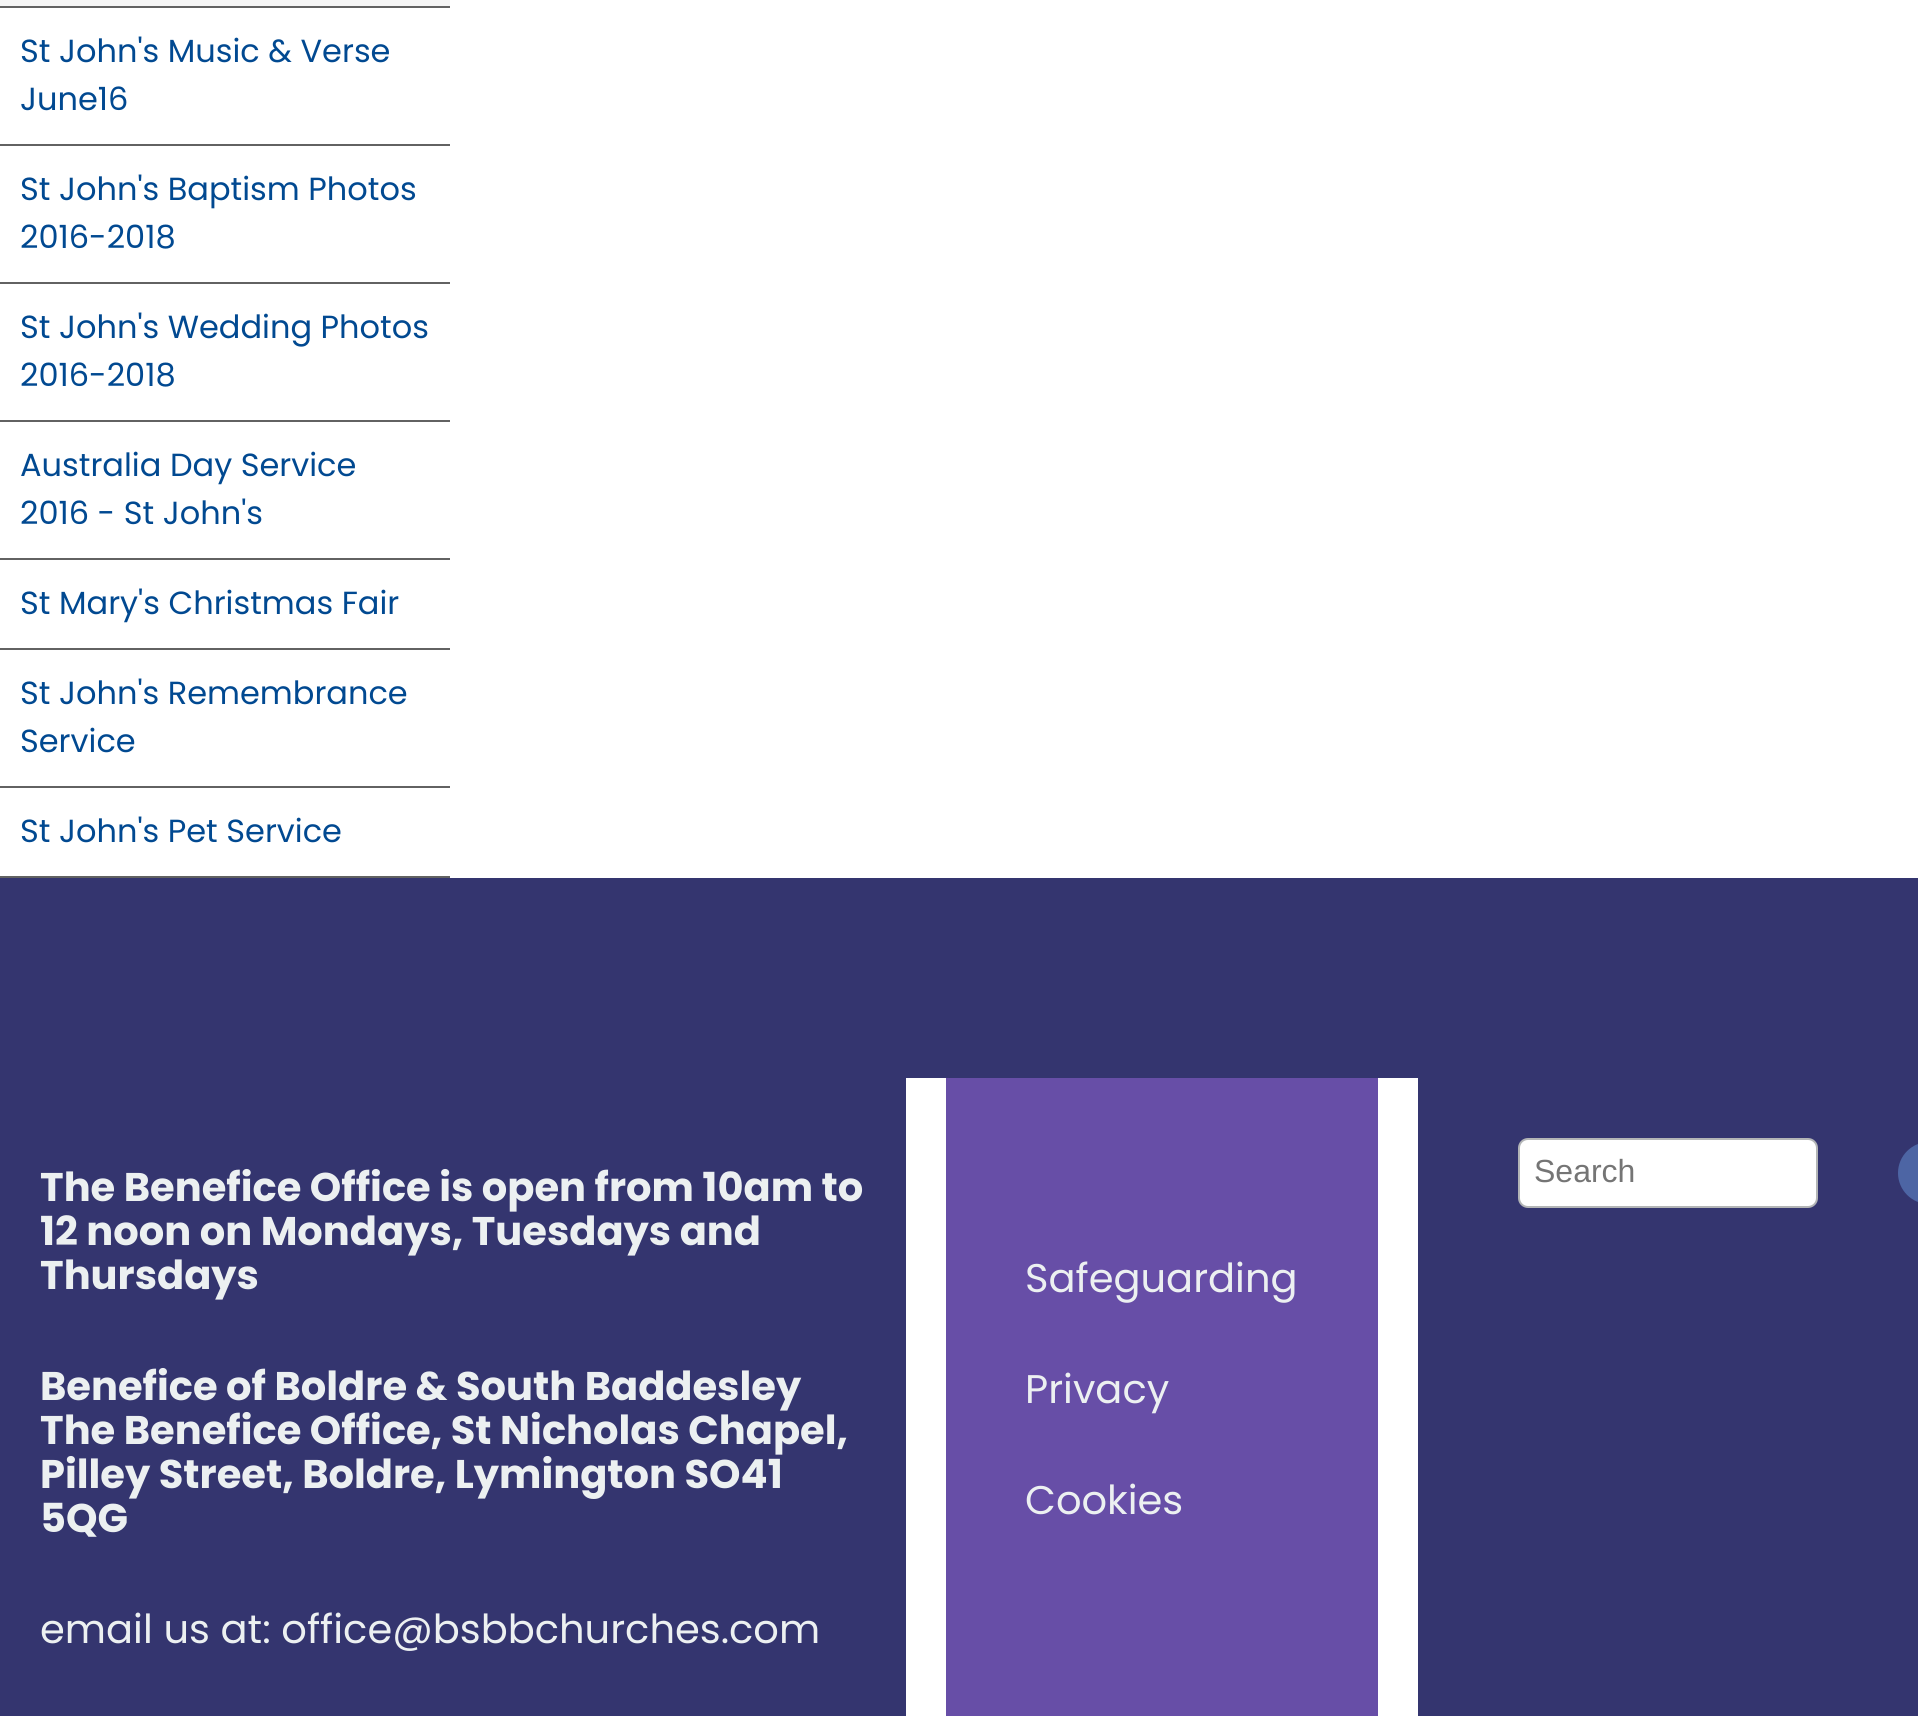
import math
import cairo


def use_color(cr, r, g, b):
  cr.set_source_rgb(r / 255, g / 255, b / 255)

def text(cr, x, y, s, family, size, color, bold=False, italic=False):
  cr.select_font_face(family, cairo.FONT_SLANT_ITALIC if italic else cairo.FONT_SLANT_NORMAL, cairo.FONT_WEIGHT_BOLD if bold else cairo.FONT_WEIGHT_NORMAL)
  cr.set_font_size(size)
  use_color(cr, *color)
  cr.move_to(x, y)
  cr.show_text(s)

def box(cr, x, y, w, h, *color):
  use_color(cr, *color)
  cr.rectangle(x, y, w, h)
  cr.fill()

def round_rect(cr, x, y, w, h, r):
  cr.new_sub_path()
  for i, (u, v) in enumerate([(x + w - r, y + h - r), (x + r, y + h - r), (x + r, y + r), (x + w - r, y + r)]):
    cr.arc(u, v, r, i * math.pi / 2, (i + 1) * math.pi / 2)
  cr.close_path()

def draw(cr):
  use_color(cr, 255, 255, 255)
  cr.paint()
  box(cr, 0, 0, 450, 6, 245, 245, 245)
  box(cr, 0, 6, 450, 2, 98, 98, 98)
  box(cr, 0, 144, 450, 2, 98, 98, 98)
  box(cr, 0, 282, 450, 2, 98, 98, 98)
  box(cr, 0, 420, 450, 2, 98, 98, 98)
  box(cr, 0, 558, 450, 2, 98, 98, 98)
  box(cr, 0, 648, 450, 2, 98, 98, 98)
  box(cr, 0, 786, 450, 2, 98, 98, 98)
  box(cr, 0, 876, 450, 2, 98, 98, 98)
  box(cr, 0, 878, 1918, 200, 52, 53, 111)
  box(cr, 0, 1078, 906, 638, 52, 53, 111)
  box(cr, 946, 1078, 432, 638, 103, 78, 167)
  box(cr, 1418, 1078, 500, 638, 52, 53, 111)
  use_color(cr, 255, 255, 255)
  round_rect(cr, 1519, 1139, 298, 68, 9)
  cr.fill_preserve()
  use_color(cr, 179, 181, 182)
  cr.stroke()
  use_color(cr, 77, 101, 164)
  round_rect(cr, 1898, 1142, 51, 62, 31)
  cr.fill()
  text(cr, 20, 62, "St John's Music & Verse", "Poppins", 32, (1, 73, 145))
  text(cr, 20, 110, "June16", "Poppins", 32, (1, 73, 145))
  text(cr, 20, 200, "St John's Baptism Photos", "Poppins", 32, (1, 73, 145))
  text(cr, 20, 248, "2016-2018", "Poppins", 32, (1, 73, 145))
  text(cr, 20, 338, "St John's Wedding Photos", "Poppins", 32, (1, 73, 145))
  text(cr, 20, 386, "2016-2018", "Poppins", 32, (1, 73, 145))
  text(cr, 20, 476, "Australia Day Service", "Poppins", 32, (1, 73, 145))
  text(cr, 20, 524, "2016 - St John's", "Poppins", 32, (1, 73, 145))
  text(cr, 20, 614, "St Mary's Christmas Fair", "Poppins", 32, (1, 73, 145))
  text(cr, 20, 704, "St John's Remembrance", "Poppins", 32, (1, 73, 145))
  text(cr, 20, 752, "Service", "Poppins", 32, (1, 73, 145))
  text(cr, 20, 842, "St John's Pet Service", "Poppins", 32, (1, 73, 145))
  text(cr, 40, 1201, "The Benefice Office is open from 10am to", "Poppins", 40, (236, 240, 241), bold=True)
  text(cr, 40, 1245, "12 noon on Mondays, Tuesdays and", "Poppins", 40, (236, 240, 241), bold=True)
  text(cr, 40, 1289, "Thursdays", "Poppins", 40, (236, 240, 241), bold=True)
  text(cr, 40, 1400, "Benefice of Boldre & South Baddesley", "Poppins", 40, (236, 240, 241), bold=True)
  text(cr, 40, 1444, "The Benefice Office, St Nicholas Chapel,", "Poppins", 40, (236, 240, 241), bold=True)
  text(cr, 40, 1488, "Pilley Street, Boldre, Lymington SO41", "Poppins", 40, (236, 240, 241), bold=True)
  text(cr, 40, 1532, "5QG", "Poppins", 40, (236, 240, 241), bold=True)
  text(cr, 40, 1643, "email us at: office@bsbbchurches.com", "Poppins", 40, (236, 240, 241))
  text(cr, 1025, 1292, "Safeguarding", "Poppins", 40, (236, 240, 241))
  text(cr, 1025, 1403, "Privacy", "Poppins", 40, (236, 240, 241))
  text(cr, 1025, 1514, "Cookies", "Poppins", 40, (236, 240, 241))
  text(cr, 1534, 1182, "Search", "Liberation Sans", 32, (117, 117, 117))


surface = cairo.ImageSurface(cairo.FORMAT_RGB24, 1918, 1716)
cr = cairo.Context(surface)
options = cairo.FontOptions()
options.set_hint_metrics(cairo.HINT_METRICS_OFF)
options.set_hint_style(cairo.HINT_STYLE_NONE)
cr.set_font_options(options)
cr.set_miter_limit(4)
draw(cr)
surface.write_to_png("out.png")
